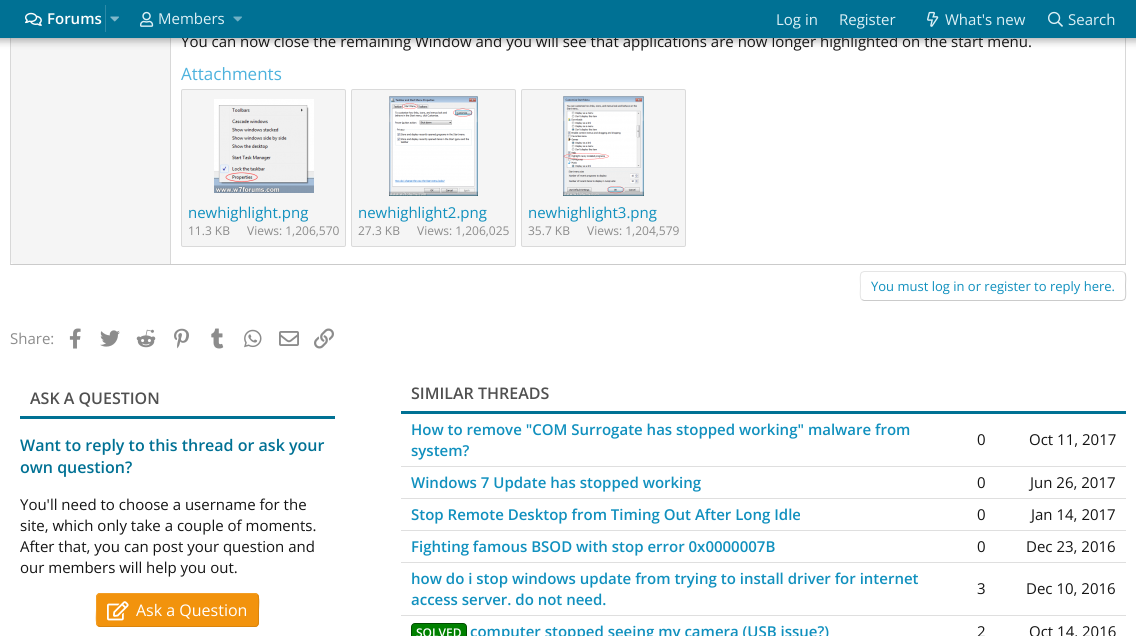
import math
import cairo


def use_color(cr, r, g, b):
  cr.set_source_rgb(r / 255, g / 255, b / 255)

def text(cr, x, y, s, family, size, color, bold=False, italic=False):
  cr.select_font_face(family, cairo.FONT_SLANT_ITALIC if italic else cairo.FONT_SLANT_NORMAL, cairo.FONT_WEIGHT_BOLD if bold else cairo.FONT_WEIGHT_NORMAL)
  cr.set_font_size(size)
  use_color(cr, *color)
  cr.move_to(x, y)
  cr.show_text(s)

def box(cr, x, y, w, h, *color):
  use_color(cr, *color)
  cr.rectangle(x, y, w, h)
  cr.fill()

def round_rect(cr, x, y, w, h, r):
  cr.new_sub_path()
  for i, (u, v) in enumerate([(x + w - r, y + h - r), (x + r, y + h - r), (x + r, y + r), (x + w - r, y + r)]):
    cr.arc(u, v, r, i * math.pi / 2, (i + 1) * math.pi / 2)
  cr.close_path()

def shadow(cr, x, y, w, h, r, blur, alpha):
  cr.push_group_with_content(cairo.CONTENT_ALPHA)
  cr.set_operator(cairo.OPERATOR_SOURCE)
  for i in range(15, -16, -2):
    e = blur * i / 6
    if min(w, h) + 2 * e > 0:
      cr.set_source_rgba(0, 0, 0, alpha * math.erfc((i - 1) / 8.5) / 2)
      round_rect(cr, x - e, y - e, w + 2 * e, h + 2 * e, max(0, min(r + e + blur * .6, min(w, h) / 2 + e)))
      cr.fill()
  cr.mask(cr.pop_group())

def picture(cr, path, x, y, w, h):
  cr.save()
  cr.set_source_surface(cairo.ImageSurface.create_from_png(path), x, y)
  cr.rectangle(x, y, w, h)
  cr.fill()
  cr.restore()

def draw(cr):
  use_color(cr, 255, 255, 255)
  cr.paint()
  use_color(cr, 216, 216, 216)
  cr.new_path()
  cr.move_to(1126, -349)
  cr.line_to(1126, 265)
  cr.line_to(1125, 264)
  cr.line_to(1125, -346)
  cr.close_path()
  cr.fill()
  box(cr, 10, 264, 1116, 1, 203, 203, 203)
  use_color(cr, 216, 216, 216)
  cr.new_path()
  cr.move_to(10, 265)
  cr.line_to(10, -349)
  cr.line_to(11, -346)
  cr.line_to(11, 264)
  cr.close_path()
  cr.fill()
  use_color(cr, 245, 245, 245)
  cr.new_path()
  cr.move_to(14, -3)
  cr.line_to(171, -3)
  cr.line_to(171, 264)
  cr.line_to(14, 264)
  cr.curve_to(12.5, 264, 11, 262.5, 11, 261)
  cr.line_to(11, 0)
  cr.curve_to(11, -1.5, 12.5, -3, 14, -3)
  cr.close_path()
  cr.fill()
  box(cr, 170, 38, 1, 226, 216, 216, 216)
  use_color(cr, 0, 0, 0)
  shadow(cr, -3, -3, 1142, 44, 0, 4, 0.3)
  use_color(cr, 245, 245, 245)
  round_rect(cr, 181.5, 89.5, 164, 157, 1.5)
  cr.fill_preserve()
  use_color(cr, 218, 218, 218)
  cr.set_line_width(1)
  cr.stroke()
  picture(cr, "img_07.png", 214, 99, 100, 94)
  use_color(cr, 245, 245, 245)
  round_rect(cr, 351.5, 89.5, 164, 157, 1.5)
  cr.fill_preserve()
  use_color(cr, 218, 218, 218)
  cr.stroke()
  picture(cr, "img_08.png", 389, 96, 89, 100)
  use_color(cr, 245, 245, 245)
  round_rect(cr, 521.5, 89.5, 164, 157, 1.5)
  cr.fill_preserve()
  use_color(cr, 218, 218, 218)
  cr.stroke()
  picture(cr, "img_09.png", 563, 96, 81, 100)
  cr.new_path()
  cr.move_to(1124.5, 272.5)
  cr.curve_to(1126.5, 274.5, 1125.5, 283, 1125.5, 286)
  cr.curve_to(1125.5, 289, 1126.5, 297.5, 1124.5, 299.5)
  cr.line_to(1122, 300.5)
  cr.line_to(864, 300.5)
  cr.line_to(861.5, 299.5)
  use_color(cr, 203, 203, 203)
  cr.stroke()
  cr.new_path()
  cr.move_to(861.5, 299.5)
  cr.curve_to(859.5, 297.5, 860.5, 289, 860.5, 286)
  cr.curve_to(860.5, 283, 859.5, 274.5, 861.5, 272.5)
  cr.line_to(864, 271.5)
  cr.line_to(1122, 271.5)
  cr.line_to(1124.5, 272.5)
  use_color(cr, 229, 229, 229)
  cr.stroke()
  picture(cr, "img_10.png", 69, 328, 12, 21)
  picture(cr, "img_11.png", 100, 330, 20, 17)
  picture(cr, "img_12.png", 136, 329, 20, 19)
  picture(cr, "img_13.png", 174, 328, 15, 21)
  picture(cr, "img_14.png", 211, 328, 13, 21)
  picture(cr, "img_15.png", 244, 329, 18, 19)
  picture(cr, "img_16.png", 279, 331, 20, 15)
  picture(cr, "img_17.png", 314, 328, 20, 21)
  box(cr, 20, 416, 315, 3, 0, 113, 148)
  use_color(cr, 242, 147, 13)
  round_rect(cr, 96, 593, 163, 34, 4)
  cr.fill()
  cr.new_path()
  cr.move_to(257.5, 594.5)
  cr.curve_to(259.5, 597, 258.5, 607, 258.5, 610)
  cr.line_to(258.5, 618.5)
  cr.curve_to(258.5, 621.5, 259, 626.5, 255, 626.5)
  cr.line_to(100, 626.5)
  cr.line_to(97.5, 625.5)
  use_color(cr, 218, 132, 12)
  cr.stroke()
  cr.new_path()
  cr.move_to(97.5, 625.5)
  cr.curve_to(95.5, 623, 96.5, 613, 96.5, 610)
  cr.line_to(96.5, 601.5)
  cr.curve_to(96.5, 598.5, 96, 593.5, 100, 593.5)
  cr.line_to(255, 593.5)
  cr.line_to(257.5, 594.5)
  use_color(cr, 243, 158, 37)
  cr.stroke()
  picture(cr, "img_18.png", 107, 601, 22, 20)
  box(cr, 401, 411, 725, 3, 0, 113, 148)
  box(cr, 401, 466, 725, 1, 223, 223, 223)
  box(cr, 401, 498, 725, 1, 223, 223, 223)
  box(cr, 401, 530, 725, 1, 223, 223, 223)
  box(cr, 401, 562, 725, 1, 223, 223, 223)
  box(cr, 401, 615, 725, 1, 223, 223, 223)
  use_color(cr, 0, 128, 0)
  round_rect(cr, 411.5, 623.5, 55, 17, 3.5)
  cr.fill_preserve()
  use_color(cr, 0, 77, 0)
  cr.stroke()
  text(cr, 181, 47, "You can now close the remaining Window and you will see that applications are now longer highlighted on the start menu.", "Open Sans", 15, (20, 20, 20))
  box(cr, 0, 0, 1136, 38, 0, 113, 148)
  picture(cr, "img_04.png", 233, 16, 9, 6)
  box(cr, 105, 5, 1, 27, 45, 138, 167)
  picture(cr, "img_02.png", 110, 16, 9, 6)
  text(cr, 158, 24, "Members", "Open Sans", 15, (221, 240, 246))
  picture(cr, "img_03.png", 140, 11, 14, 16)
  text(cr, 47, 24, "Forums", "Open Sans SemiBold", 15, (255, 255, 255))
  picture(cr, "img_01.png", 25, 12, 17, 14)
  text(cr, 1068, 25, "Search", "Open Sans", 15, (221, 240, 246))
  picture(cr, "img_06.png", 1048, 11, 15, 16)
  text(cr, 945, 25, "What's new", "Open Sans", 15, (221, 240, 246))
  picture(cr, "img_05.png", 927, 11, 12, 16)
  text(cr, 839, 25, "Register", "Open Sans", 15, (221, 240, 246))
  text(cr, 776, 25, "Log in", "Open Sans", 15, (221, 240, 246))
  text(cr, 181, 80, "Attachments", "Open Sans", 17, (77, 178, 221))
  text(cr, 188, 218, "newhighlight.png", "Open Sans", 15, (16, 144, 190))
  text(cr, 188, 235, "11.3 KB", "Open Sans", 12, (140, 140, 140))
  text(cr, 247, 235, "Views: 1,206,570", "Open Sans", 12, (140, 140, 140))
  text(cr, 358, 218, "newhighlight2.png", "Open Sans", 15, (16, 144, 190))
  text(cr, 358, 235, "27.3 KB", "Open Sans", 12, (140, 140, 140))
  text(cr, 417, 235, "Views: 1,206,025", "Open Sans", 12, (140, 140, 140))
  text(cr, 528, 218, "newhighlight3.png", "Open Sans", 15, (16, 144, 190))
  text(cr, 528, 235, "35.7 KB", "Open Sans", 12, (140, 140, 140))
  text(cr, 587, 235, "Views: 1,204,579", "Open Sans", 12, (140, 140, 140))
  text(cr, 871, 291, "You must log in or register to reply here.", "Open Sans", 13, (16, 144, 190))
  text(cr, 10, 344, "Share:", "Open Sans", 15, (140, 140, 140))
  text(cr, 30, 404, "ASK A QUESTION", "Open Sans SemiBold", 16, (80, 80, 80))
  text(cr, 20, 451, "Want to reply to this thread or ask your", "Open Sans SemiBold", 16, (0, 113, 148))
  text(cr, 20, 473, "own question?", "Open Sans SemiBold", 16, (0, 113, 148))
  text(cr, 20, 510, "You'll need to choose a username for the", "Open Sans", 15, (20, 20, 20))
  text(cr, 20, 531, "site, which only take a couple of moments.", "Open Sans", 15, (20, 20, 20))
  text(cr, 20, 552, "After that, you can post your question and", "Open Sans", 15, (20, 20, 20))
  text(cr, 20, 573, "our members will help you out.", "Open Sans", 15, (20, 20, 20))
  text(cr, 136, 616, "Ask a Question", "Open Sans", 16, (255, 255, 255))
  text(cr, 411, 399, "SIMILAR THREADS", "Open Sans SemiBold", 16, (80, 80, 80))
  text(cr, 411, 435, "How to remove \"COM Surrogate has stopped working\" malware from", "Open Sans SemiBold", 15, (16, 144, 190))
  text(cr, 411, 456, "system?", "Open Sans SemiBold", 15, (16, 144, 190))
  text(cr, 977, 445, "0", "Open Sans", 15, (20, 20, 20))
  text(cr, 1029, 445, "Oct 11, 2017", "Open Sans", 15, (20, 20, 20))
  text(cr, 411, 488, "Windows 7 Update has stopped working", "Open Sans SemiBold", 15, (16, 144, 190))
  text(cr, 977, 488, "0", "Open Sans", 15, (20, 20, 20))
  text(cr, 1030, 488, "Jun 26, 2017", "Open Sans", 15, (20, 20, 20))
  text(cr, 411, 520, "Stop Remote Desktop from Timing Out After Long Idle", "Open Sans SemiBold", 15, (16, 144, 190))
  text(cr, 977, 520, "0", "Open Sans", 15, (20, 20, 20))
  text(cr, 1031, 520, "Jan 14, 2017", "Open Sans", 15, (20, 20, 20))
  text(cr, 411, 552, "Fighting famous BSOD with stop error 0x0000007B", "Open Sans SemiBold", 15, (16, 144, 190))
  text(cr, 977, 552, "0", "Open Sans", 15, (20, 20, 20))
  text(cr, 1026, 552, "Dec 23, 2016", "Open Sans", 15, (20, 20, 20))
  text(cr, 411, 584, "how do i stop windows update from trying to install driver for internet", "Open Sans SemiBold", 15, (16, 144, 190))
  text(cr, 411, 605, "access server. do not need.", "Open Sans SemiBold", 15, (16, 144, 190))
  text(cr, 977, 594, "3", "Open Sans", 15, (20, 20, 20))
  text(cr, 1026, 594, "Dec 10, 2016", "Open Sans", 15, (20, 20, 20))
  text(cr, 416, 637, "SOLVED", "Open Sans SemiBold", 12, (255, 255, 255))
  text(cr, 470, 637, "computer stopped seeing my camera (USB issue?)", "Open Sans SemiBold", 15, (16, 144, 190))
  text(cr, 977, 637, "2", "Open Sans", 15, (20, 20, 20))
  text(cr, 1029, 637, "Oct 14, 2016", "Open Sans", 15, (20, 20, 20))


surface = cairo.ImageSurface(cairo.FORMAT_RGB24, 1136, 636)
cr = cairo.Context(surface)
options = cairo.FontOptions()
options.set_hint_metrics(cairo.HINT_METRICS_OFF)
options.set_hint_style(cairo.HINT_STYLE_NONE)
cr.set_font_options(options)
cr.set_miter_limit(4)
draw(cr)
surface.write_to_png("out.png")
